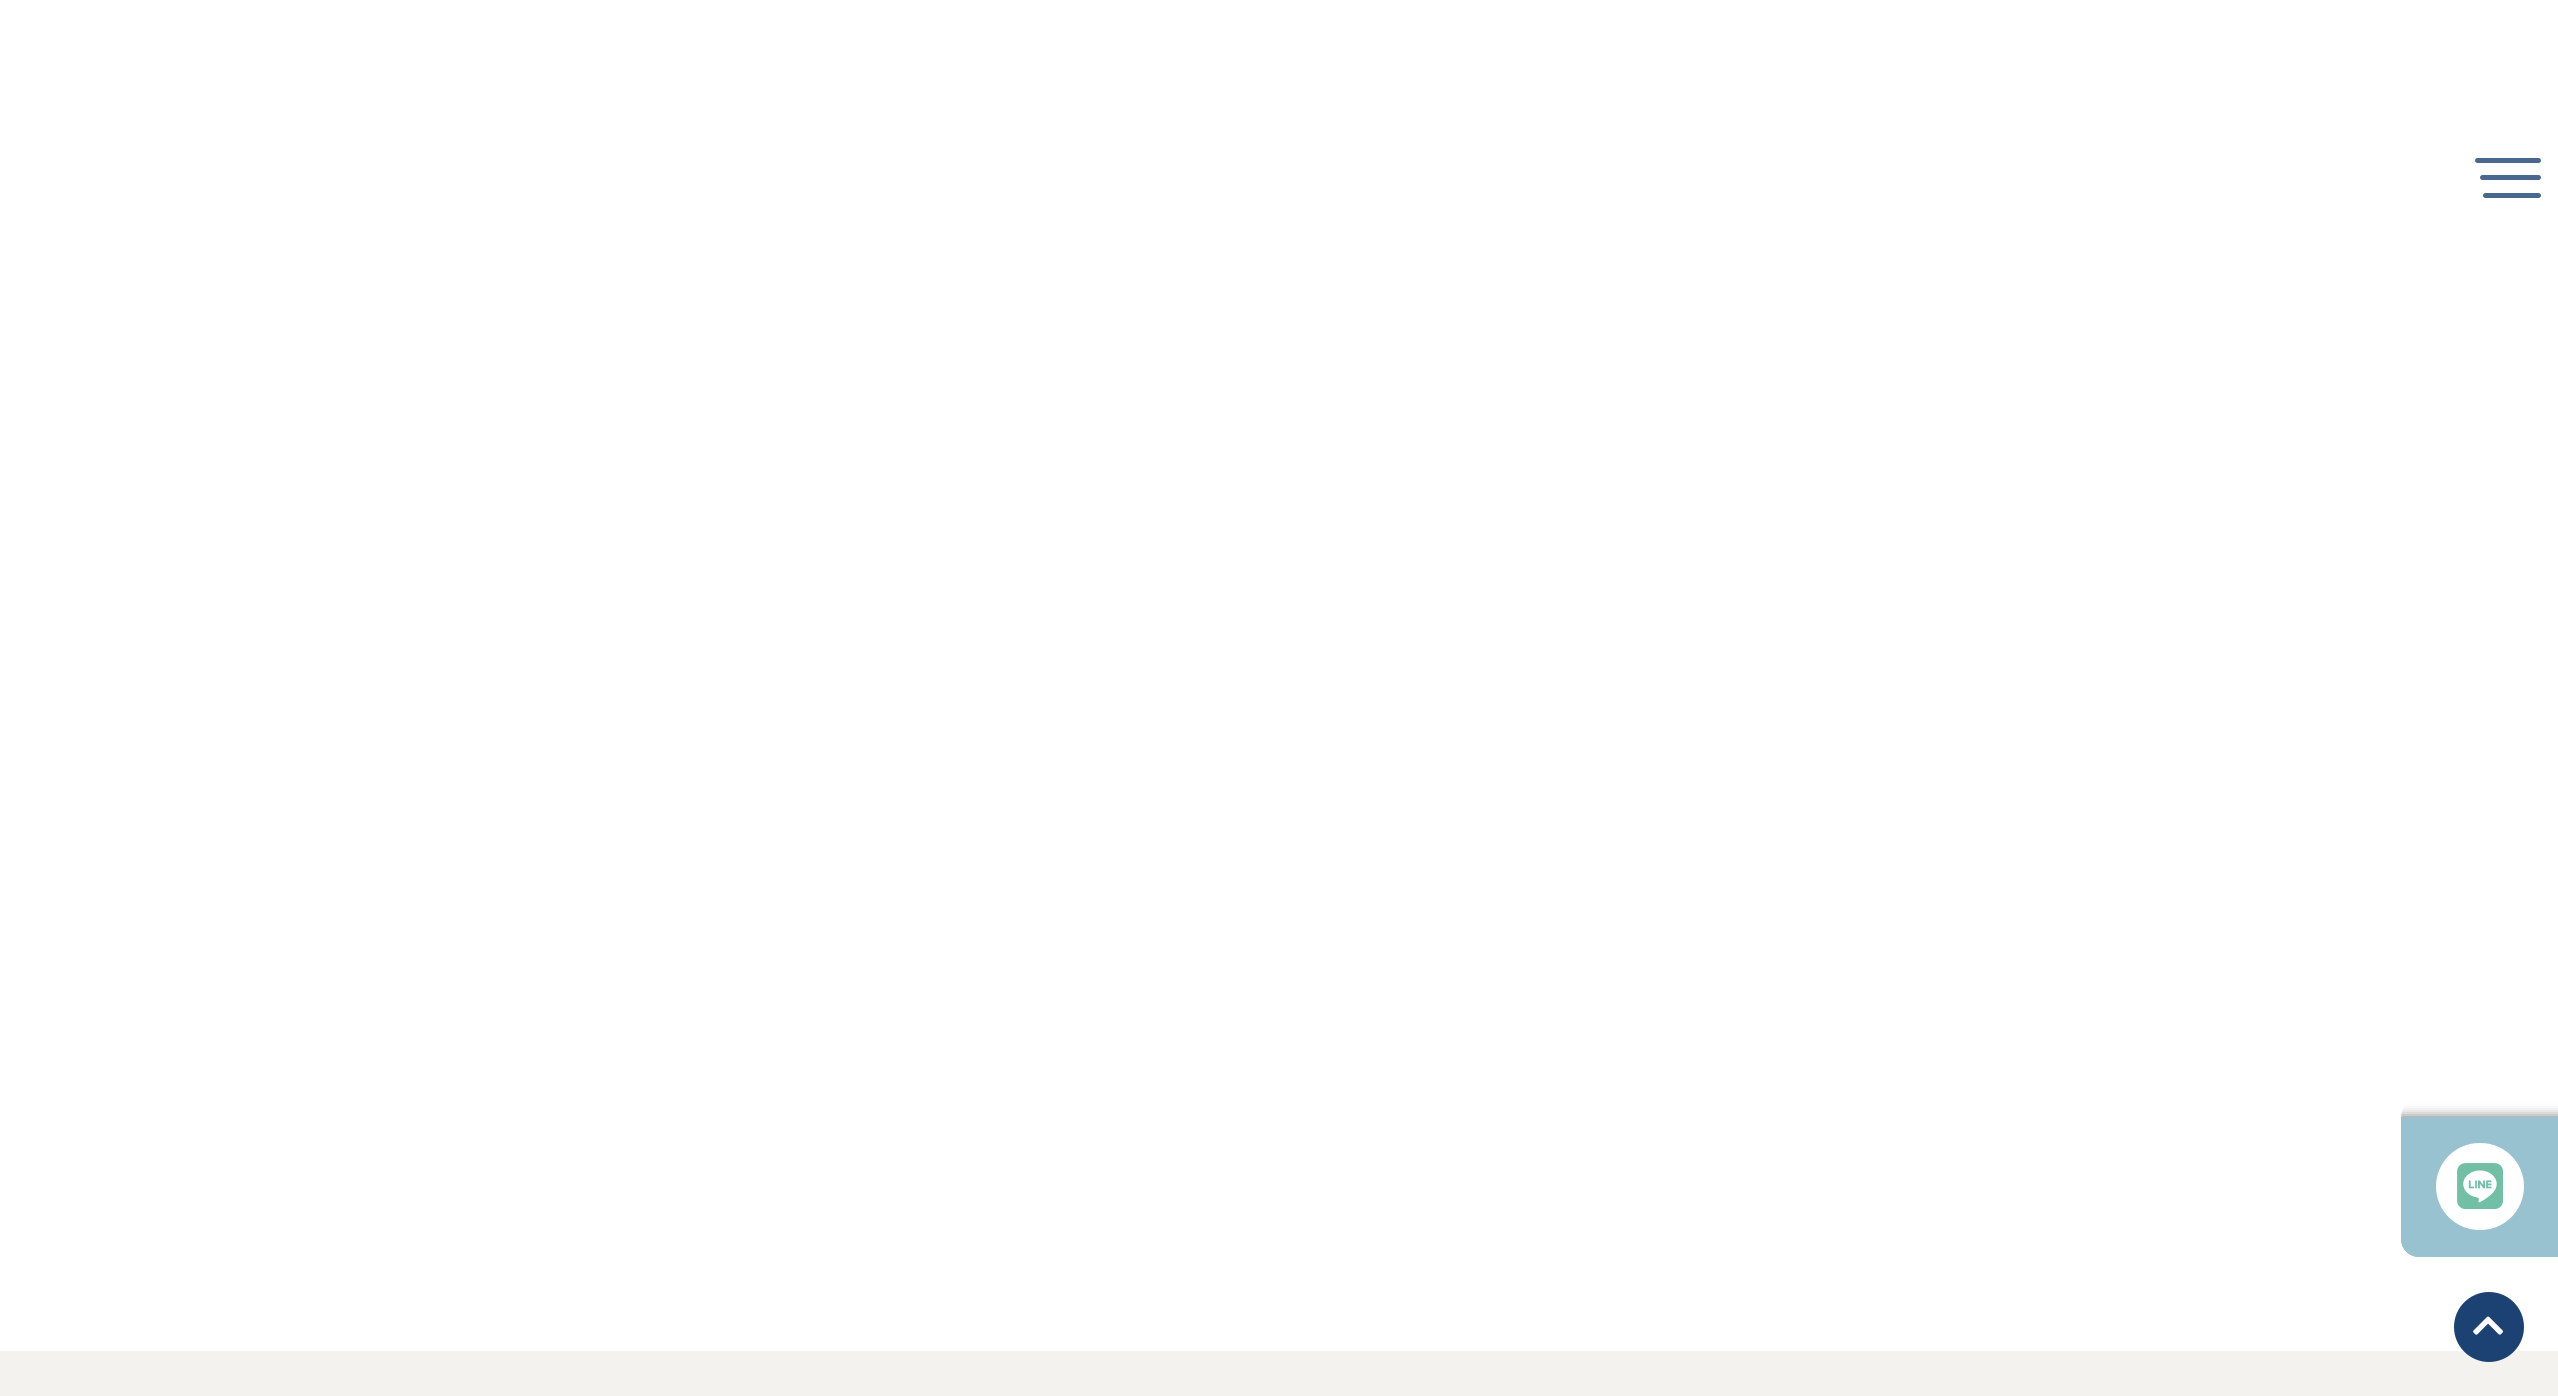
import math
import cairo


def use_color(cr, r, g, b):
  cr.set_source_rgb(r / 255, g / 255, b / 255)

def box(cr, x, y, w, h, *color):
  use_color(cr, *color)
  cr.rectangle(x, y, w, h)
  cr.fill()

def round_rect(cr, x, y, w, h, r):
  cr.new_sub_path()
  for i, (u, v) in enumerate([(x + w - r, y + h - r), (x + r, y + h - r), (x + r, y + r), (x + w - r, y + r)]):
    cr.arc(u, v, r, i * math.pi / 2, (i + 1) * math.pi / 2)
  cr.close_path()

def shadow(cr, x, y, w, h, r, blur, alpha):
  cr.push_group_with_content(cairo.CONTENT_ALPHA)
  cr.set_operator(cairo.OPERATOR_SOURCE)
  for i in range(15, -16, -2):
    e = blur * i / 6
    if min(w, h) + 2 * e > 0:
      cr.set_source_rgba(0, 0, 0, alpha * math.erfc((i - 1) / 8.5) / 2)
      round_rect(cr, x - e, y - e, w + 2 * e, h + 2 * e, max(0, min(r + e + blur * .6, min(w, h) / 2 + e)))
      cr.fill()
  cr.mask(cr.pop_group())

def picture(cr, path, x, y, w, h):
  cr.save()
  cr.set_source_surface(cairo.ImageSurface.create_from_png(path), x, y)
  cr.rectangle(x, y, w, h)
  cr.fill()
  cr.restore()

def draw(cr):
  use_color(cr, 255, 255, 255)
  cr.paint()
  use_color(cr, 73, 104, 142)
  round_rect(cr, 2480, 175, 61, 5, 2.5)
  cr.fill()
  round_rect(cr, 2475, 158, 66, 5, 2.5)
  cr.fill()
  round_rect(cr, 2483, 193, 58, 5, 2.5)
  cr.fill()
  box(cr, 0, 1351, 2558, 45, 244, 242, 239)
  use_color(cr, 27, 66, 114)
  cr.arc(2489, 1327, 35, 0, 2 * math.pi)
  cr.fill()
  picture(cr, "img_01.png", 2473, 1316, 30, 19)
  cr.save()
  cr.new_path()
  cr.move_to(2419, 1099)
  cr.line_to(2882, 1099)
  cr.line_to(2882, 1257)
  cr.line_to(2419, 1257)
  cr.curve_to(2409, 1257, 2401, 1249, 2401, 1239)
  cr.line_to(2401, 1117)
  cr.curve_to(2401, 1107, 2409, 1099, 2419, 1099)
  cr.close_path()
  cr.clip()
  use_color(cr, 51, 51, 51)
  shadow(cr, 2401, 1117, 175, 140, 0, 6, 0.7)
  cr.restore()
  use_color(cr, 153, 194, 209)
  cr.new_path()
  cr.move_to(2401, 1117)
  cr.line_to(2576, 1117)
  cr.line_to(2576, 1257)
  cr.line_to(2419, 1257)
  cr.curve_to(2409, 1257, 2401, 1249, 2401, 1239)
  cr.close_path()
  cr.fill()
  use_color(cr, 255, 255, 255)
  round_rect(cr, 2436, 1143, 88, 87, 43.5)
  cr.fill()
  picture(cr, "img_02.png", 2457, 1163, 47, 46)


surface = cairo.ImageSurface(cairo.FORMAT_RGB24, 2558, 1396)
cr = cairo.Context(surface)
options = cairo.FontOptions()
options.set_hint_metrics(cairo.HINT_METRICS_OFF)
options.set_hint_style(cairo.HINT_STYLE_NONE)
cr.set_font_options(options)
cr.set_miter_limit(4)
draw(cr)
surface.write_to_png("out.png")
